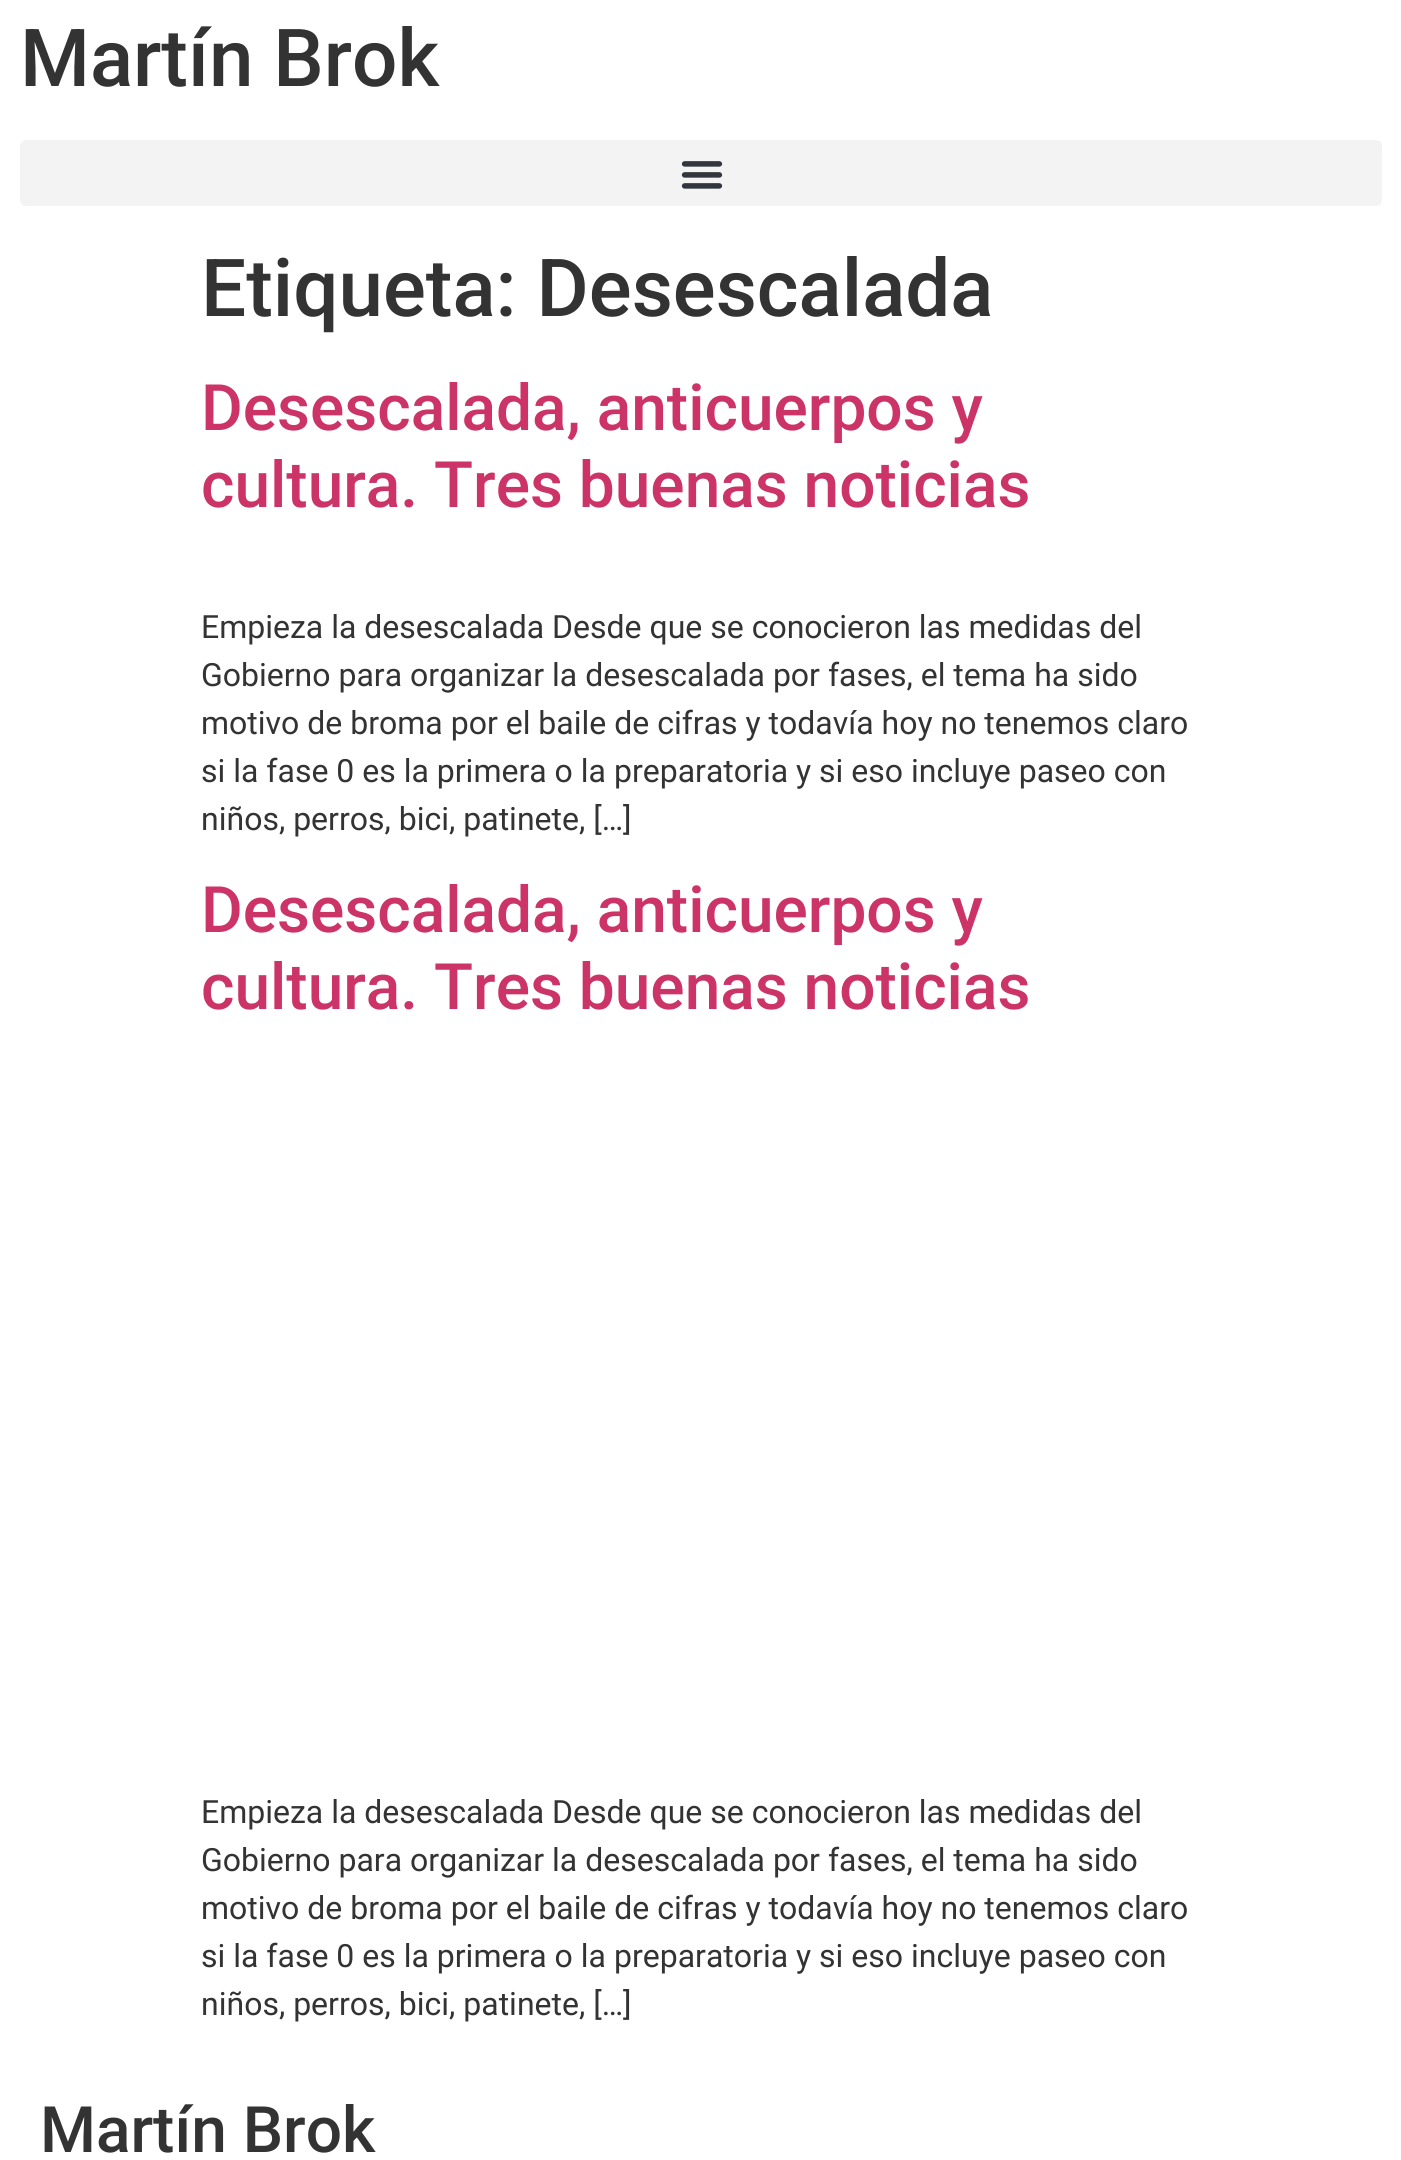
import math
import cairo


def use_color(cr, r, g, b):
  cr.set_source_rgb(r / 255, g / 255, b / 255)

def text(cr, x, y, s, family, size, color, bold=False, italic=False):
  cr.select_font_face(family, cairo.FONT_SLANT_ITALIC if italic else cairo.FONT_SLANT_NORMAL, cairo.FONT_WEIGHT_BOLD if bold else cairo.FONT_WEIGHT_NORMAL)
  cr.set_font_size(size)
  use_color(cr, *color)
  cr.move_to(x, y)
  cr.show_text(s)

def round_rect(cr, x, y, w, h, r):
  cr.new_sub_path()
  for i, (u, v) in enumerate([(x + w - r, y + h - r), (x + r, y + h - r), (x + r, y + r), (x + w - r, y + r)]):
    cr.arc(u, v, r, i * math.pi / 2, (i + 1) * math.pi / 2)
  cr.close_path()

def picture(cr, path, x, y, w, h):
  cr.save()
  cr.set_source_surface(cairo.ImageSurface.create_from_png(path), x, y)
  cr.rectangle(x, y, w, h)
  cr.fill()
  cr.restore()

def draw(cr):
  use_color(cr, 255, 255, 255)
  cr.paint()
  use_color(cr, 243, 243, 243)
  round_rect(cr, 20, 140, 1362, 66, 6)
  cr.fill()
  picture(cr, "img_01.png", 681, 161, 42, 28)
  text(cr, 20, 86, "Martín Brok", "Roboto Medium", 80, (51, 51, 51))
  text(cr, 201, 316, "Etiqueta: Desescalada", "Roboto Medium", 80, (51, 51, 51))
  text(cr, 201, 430, "Desescalada, anticuerpos y", "Roboto Medium", 64, (204, 51, 102))
  text(cr, 201, 507, "cultura. Tres buenas noticias", "Roboto Medium", 64, (204, 51, 102))
  text(cr, 201, 638, "Empieza la desescalada Desde que se conocieron las medidas del", "Roboto", 32, (51, 51, 51))
  text(cr, 201, 686, "Gobierno para organizar la desescalada por fases, el tema ha sido", "Roboto", 32, (51, 51, 51))
  text(cr, 201, 734, "motivo de broma por el baile de cifras y todavía hoy no tenemos claro", "Roboto", 32, (51, 51, 51))
  text(cr, 201, 782, "si la fase 0 es la primera o la preparatoria y si eso incluye paseo con", "Roboto", 32, (51, 51, 51))
  text(cr, 201, 830, "niños, perros, bici, patinete, […]", "Roboto", 32, (51, 51, 51))
  text(cr, 201, 932, "Desescalada, anticuerpos y", "Roboto Medium", 64, (204, 51, 102))
  text(cr, 201, 1009, "cultura. Tres buenas noticias", "Roboto Medium", 64, (204, 51, 102))
  text(cr, 201, 1823, "Empieza la desescalada Desde que se conocieron las medidas del", "Roboto", 32, (51, 51, 51))
  text(cr, 201, 1871, "Gobierno para organizar la desescalada por fases, el tema ha sido", "Roboto", 32, (51, 51, 51))
  text(cr, 201, 1919, "motivo de broma por el baile de cifras y todavía hoy no tenemos claro", "Roboto", 32, (51, 51, 51))
  text(cr, 201, 1967, "si la fase 0 es la primera o la preparatoria y si eso incluye paseo con", "Roboto", 32, (51, 51, 51))
  text(cr, 201, 2015, "niños, perros, bici, patinete, […]", "Roboto", 32, (51, 51, 51))
  text(cr, 40, 2152, "Martín Brok", "Roboto Medium", 64, (51, 51, 51))


surface = cairo.ImageSurface(cairo.FORMAT_RGB24, 1401, 2160)
cr = cairo.Context(surface)
options = cairo.FontOptions()
options.set_hint_metrics(cairo.HINT_METRICS_OFF)
options.set_hint_style(cairo.HINT_STYLE_NONE)
cr.set_font_options(options)
cr.set_miter_limit(4)
draw(cr)
surface.write_to_png("out.png")
